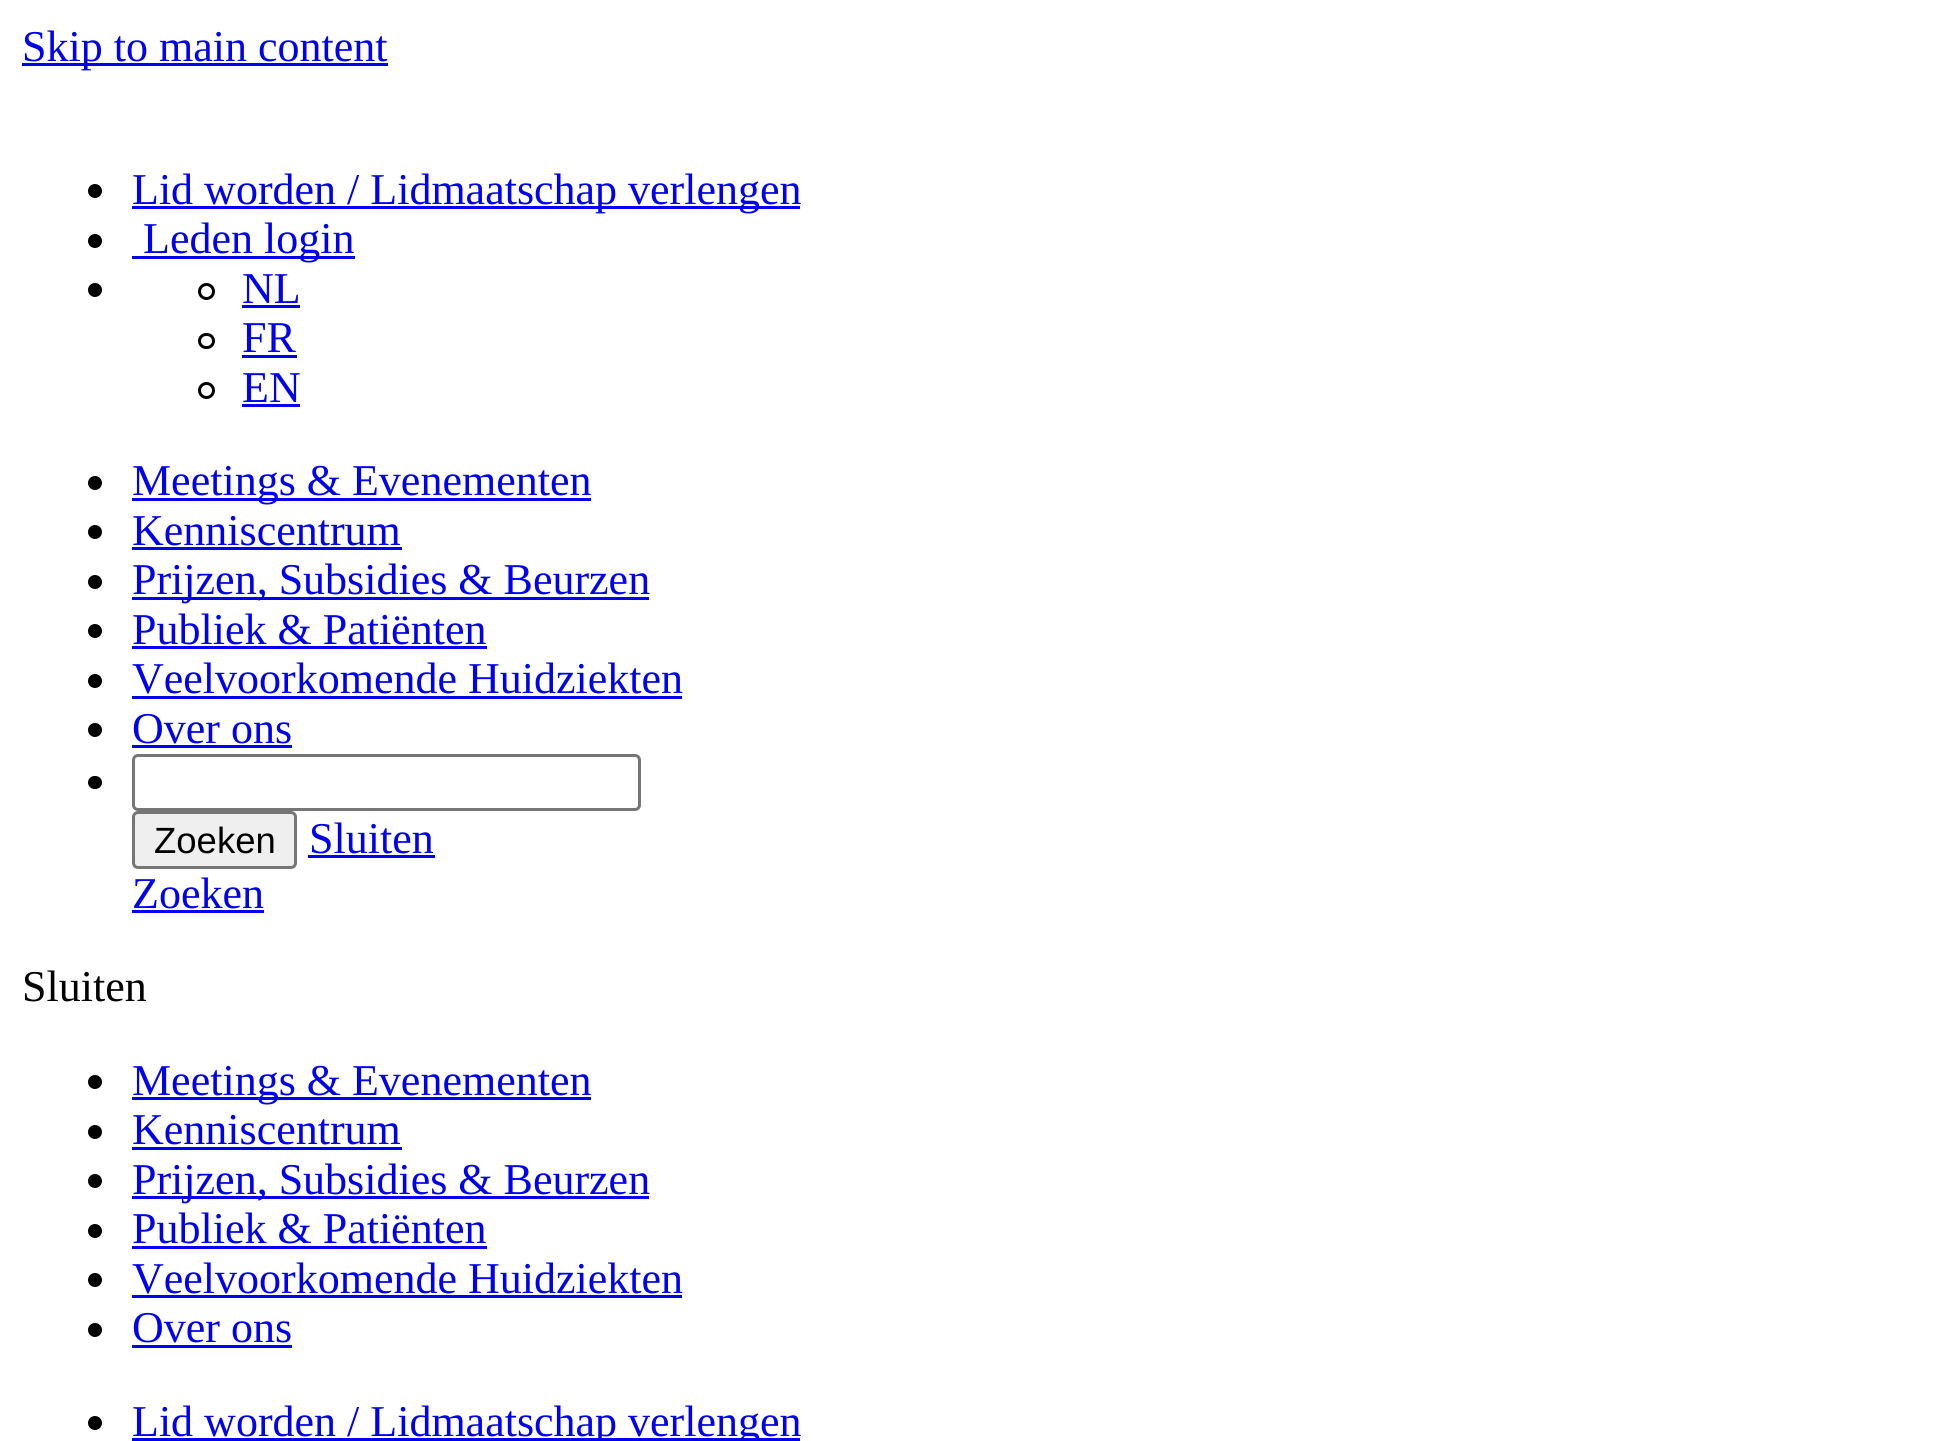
import math
import cairo


def use_color(cr, r, g, b):
  cr.set_source_rgb(r / 255, g / 255, b / 255)

def text(cr, x, y, s, family, size, color, bold=False, italic=False):
  cr.select_font_face(family, cairo.FONT_SLANT_ITALIC if italic else cairo.FONT_SLANT_NORMAL, cairo.FONT_WEIGHT_BOLD if bold else cairo.FONT_WEIGHT_NORMAL)
  cr.set_font_size(size)
  use_color(cr, *color)
  cr.move_to(x, y)
  cr.show_text(s)

def box(cr, x, y, w, h, *color):
  use_color(cr, *color)
  cr.rectangle(x, y, w, h)
  cr.fill()

def round_rect(cr, x, y, w, h, r):
  cr.new_sub_path()
  for i, (u, v) in enumerate([(x + w - r, y + h - r), (x + r, y + h - r), (x + r, y + r), (x + w - r, y + r)]):
    cr.arc(u, v, r, i * math.pi / 2, (i + 1) * math.pi / 2)
  cr.close_path()

def draw(cr):
  use_color(cr, 255, 255, 255)
  cr.paint()
  box(cr, 22, 63, 366, 3, 0, 0, 238)
  use_color(cr, 0, 0, 0)
  cr.arc(95, 191, 7, 0, 2 * math.pi)
  cr.fill()
  box(cr, 132, 206, 668, 3, 0, 0, 238)
  use_color(cr, 0, 0, 0)
  cr.arc(95, 241, 7, 0, 2 * math.pi)
  cr.fill()
  box(cr, 132, 256, 223, 3, 0, 0, 238)
  use_color(cr, 0, 0, 0)
  cr.arc(95, 290, 7, 0, 2 * math.pi)
  cr.fill()
  cr.arc(206.5, 291.5, 7, 0, 2 * math.pi)
  cr.set_line_width(3)
  cr.stroke()
  box(cr, 242, 305, 58, 3, 0, 0, 238)
  round_rect(cr, 199.5, 334.5, 14, 13, 6.5)
  use_color(cr, 0, 0, 0)
  cr.stroke()
  box(cr, 242, 355, 55, 3, 0, 0, 238)
  cr.arc(206.5, 390.5, 7, 0, 2 * math.pi)
  use_color(cr, 0, 0, 0)
  cr.stroke()
  box(cr, 242, 404, 58, 3, 0, 0, 238)
  use_color(cr, 0, 0, 0)
  cr.arc(95, 483, 7, 0, 2 * math.pi)
  cr.fill()
  box(cr, 132, 498, 459, 3, 0, 0, 238)
  use_color(cr, 0, 0, 0)
  cr.arc(95, 532, 7, 0, 2 * math.pi)
  cr.fill()
  box(cr, 132, 547, 270, 3, 0, 0, 238)
  use_color(cr, 0, 0, 0)
  cr.arc(95, 582, 7, 0, 2 * math.pi)
  cr.fill()
  box(cr, 132, 597, 517, 3, 0, 0, 238)
  use_color(cr, 0, 0, 0)
  cr.arc(95, 631, 7, 0, 2 * math.pi)
  cr.fill()
  box(cr, 132, 646, 355, 3, 0, 0, 238)
  use_color(cr, 0, 0, 0)
  cr.arc(95, 681, 7, 0, 2 * math.pi)
  cr.fill()
  box(cr, 132, 696, 550, 3, 0, 0, 238)
  use_color(cr, 0, 0, 0)
  cr.arc(95, 730, 7, 0, 2 * math.pi)
  cr.fill()
  box(cr, 132, 745, 160, 3, 0, 0, 238)
  use_color(cr, 0, 0, 0)
  round_rect(cr, 88, 776, 14, 13, 6.5)
  cr.fill()
  round_rect(cr, 133.5, 755.5, 506, 54, 4.5)
  use_color(cr, 118, 118, 118)
  cr.stroke()
  use_color(cr, 239, 239, 239)
  round_rect(cr, 133.5, 812.5, 162, 55, 4.5)
  cr.fill_preserve()
  use_color(cr, 118, 118, 118)
  cr.stroke()
  box(cr, 308, 855, 127, 3, 0, 0, 238)
  box(cr, 132, 910, 132, 3, 0, 0, 238)
  use_color(cr, 0, 0, 0)
  cr.arc(95, 1082, 7, 0, 2 * math.pi)
  cr.fill()
  box(cr, 132, 1097, 459, 3, 0, 0, 238)
  use_color(cr, 0, 0, 0)
  cr.arc(95, 1132, 7, 0, 2 * math.pi)
  cr.fill()
  box(cr, 132, 1147, 270, 3, 0, 0, 238)
  use_color(cr, 0, 0, 0)
  cr.arc(95, 1181, 7, 0, 2 * math.pi)
  cr.fill()
  box(cr, 132, 1196, 517, 3, 0, 0, 238)
  use_color(cr, 0, 0, 0)
  cr.arc(95, 1231, 7, 0, 2 * math.pi)
  cr.fill()
  box(cr, 132, 1246, 355, 3, 0, 0, 238)
  use_color(cr, 0, 0, 0)
  cr.arc(95, 1280, 7, 0, 2 * math.pi)
  cr.fill()
  box(cr, 132, 1295, 550, 3, 0, 0, 238)
  use_color(cr, 0, 0, 0)
  cr.arc(95, 1330, 7, 0, 2 * math.pi)
  cr.fill()
  box(cr, 132, 1345, 160, 3, 0, 0, 238)
  use_color(cr, 0, 0, 0)
  cr.arc(95, 1423, 7, 0, 2 * math.pi)
  cr.fill()
  box(cr, 132, 1438, 668, 3, 0, 0, 238)
  text(cr, 22, 61, "Skip to main content", "Liberation Serif", 44, (0, 0, 238))
  text(cr, 132, 204, "Lid worden / Lidmaatschap verlengen", "Liberation Serif", 44, (0, 0, 238))
  text(cr, 143, 253, "Leden login", "Liberation Serif", 44, (0, 0, 238))
  text(cr, 242, 303, "NL", "Liberation Serif", 44, (0, 0, 238))
  text(cr, 242, 352, "FR", "Liberation Serif", 44, (0, 0, 238))
  text(cr, 242, 402, "EN", "Liberation Serif", 44, (0, 0, 238))
  text(cr, 132, 495, "Meetings & Evenementen", "Liberation Serif", 44, (0, 0, 238))
  text(cr, 132, 545, "Kenniscentrum", "Liberation Serif", 44, (0, 0, 238))
  text(cr, 132, 594, "Prijzen, Subsidies & Beurzen", "Liberation Serif", 44, (0, 0, 238))
  text(cr, 132, 644, "Publiek & Patiënten", "Liberation Serif", 44, (0, 0, 238))
  text(cr, 132, 693, "Veelvoorkomende Huidziekten", "Liberation Serif", 44, (0, 0, 238))
  text(cr, 132, 743, "Over ons", "Liberation Serif", 44, (0, 0, 238))
  text(cr, 154, 853, "Zoeken", "Liberation Sans", 36.5, (0, 0, 0))
  text(cr, 309, 853, "Sluiten", "Liberation Serif", 44, (0, 0, 238))
  text(cr, 132, 908, "Zoeken", "Liberation Serif", 44, (0, 0, 238))
  text(cr, 22, 1001, "Sluiten", "Liberation Serif", 44, (0, 0, 0))
  text(cr, 132, 1095, "Meetings & Evenementen", "Liberation Serif", 44, (0, 0, 238))
  text(cr, 132, 1144, "Kenniscentrum", "Liberation Serif", 44, (0, 0, 238))
  text(cr, 132, 1194, "Prijzen, Subsidies & Beurzen", "Liberation Serif", 44, (0, 0, 238))
  text(cr, 132, 1243, "Publiek & Patiënten", "Liberation Serif", 44, (0, 0, 238))
  text(cr, 132, 1293, "Veelvoorkomende Huidziekten", "Liberation Serif", 44, (0, 0, 238))
  text(cr, 132, 1342, "Over ons", "Liberation Serif", 44, (0, 0, 238))
  text(cr, 132, 1436, "Lid worden / Lidmaatschap verlengen", "Liberation Serif", 44, (0, 0, 238))


surface = cairo.ImageSurface(cairo.FORMAT_RGB24, 1945, 1441)
cr = cairo.Context(surface)
options = cairo.FontOptions()
options.set_hint_metrics(cairo.HINT_METRICS_OFF)
options.set_hint_style(cairo.HINT_STYLE_NONE)
cr.set_font_options(options)
cr.set_miter_limit(4)
draw(cr)
surface.write_to_png("out.png")
